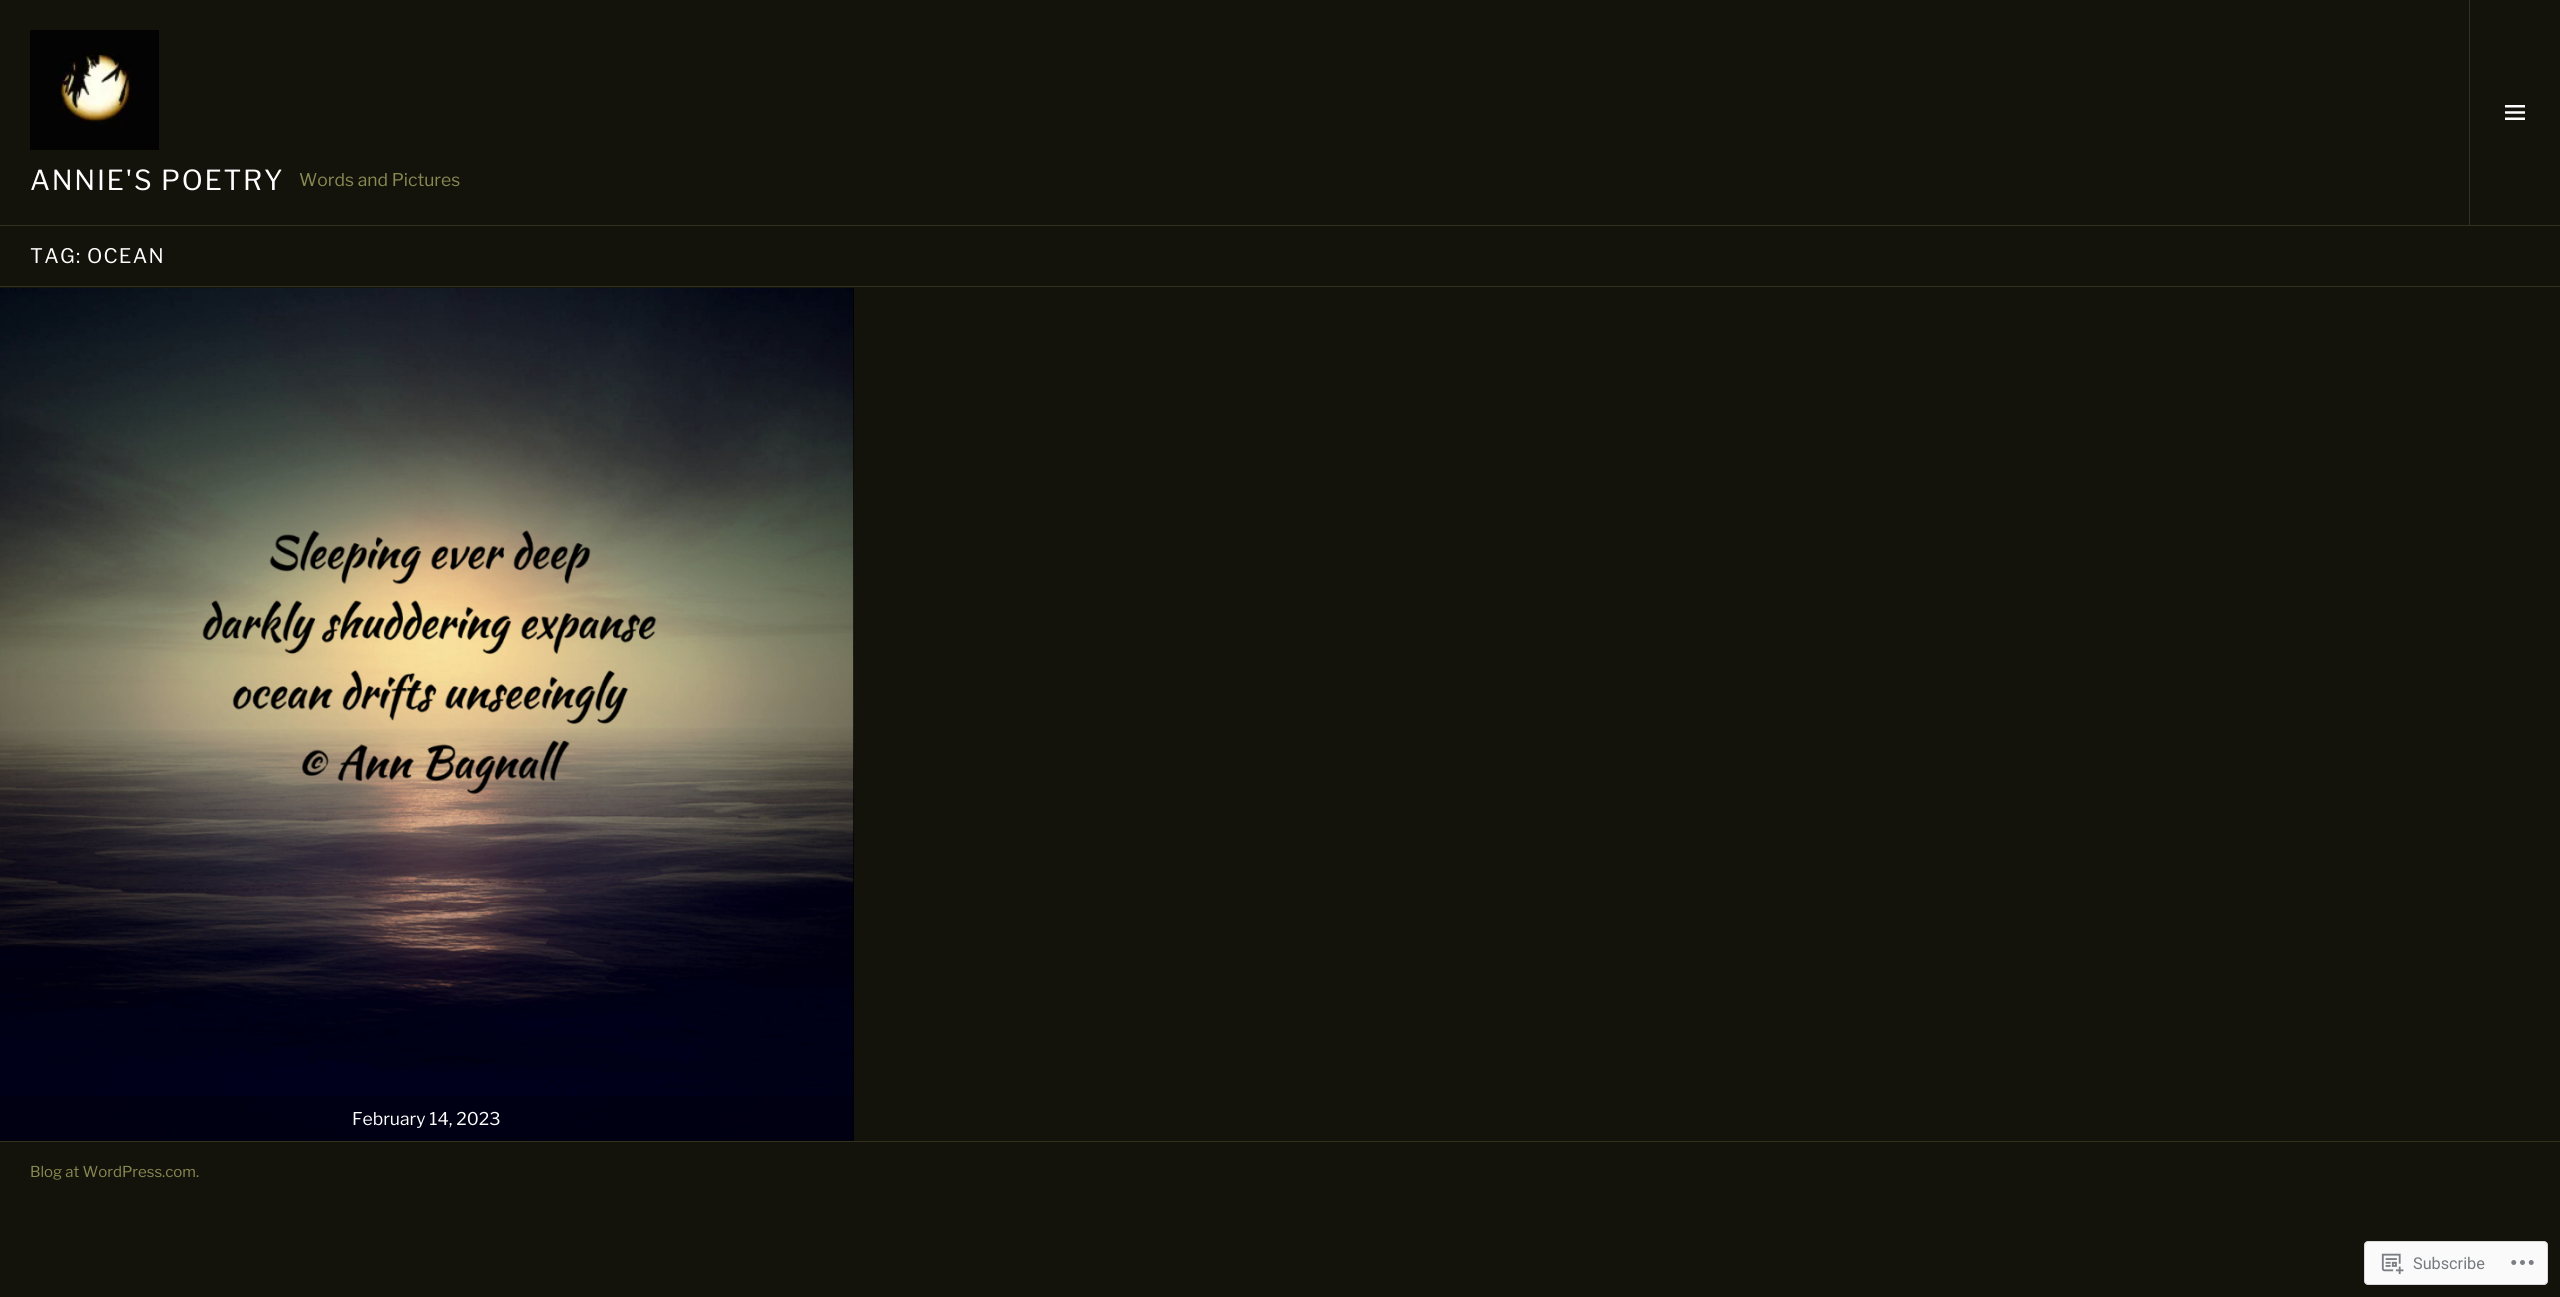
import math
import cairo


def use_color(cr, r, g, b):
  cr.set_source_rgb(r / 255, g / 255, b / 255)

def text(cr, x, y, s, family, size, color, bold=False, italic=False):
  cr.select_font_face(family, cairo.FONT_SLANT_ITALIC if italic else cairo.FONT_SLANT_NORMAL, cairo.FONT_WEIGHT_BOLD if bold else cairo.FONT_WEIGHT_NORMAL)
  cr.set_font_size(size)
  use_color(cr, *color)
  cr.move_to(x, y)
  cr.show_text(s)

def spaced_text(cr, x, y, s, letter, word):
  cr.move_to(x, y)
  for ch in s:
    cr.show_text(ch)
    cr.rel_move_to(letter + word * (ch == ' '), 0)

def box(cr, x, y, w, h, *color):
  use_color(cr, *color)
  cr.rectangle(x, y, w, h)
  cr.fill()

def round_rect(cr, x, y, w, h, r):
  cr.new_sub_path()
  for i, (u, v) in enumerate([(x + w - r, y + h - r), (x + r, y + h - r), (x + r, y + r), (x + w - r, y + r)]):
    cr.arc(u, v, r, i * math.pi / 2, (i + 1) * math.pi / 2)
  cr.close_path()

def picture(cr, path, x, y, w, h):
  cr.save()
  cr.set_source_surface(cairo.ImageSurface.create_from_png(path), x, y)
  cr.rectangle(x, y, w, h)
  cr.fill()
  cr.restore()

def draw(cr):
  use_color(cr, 19, 19, 11)
  cr.paint()
  box(cr, 0, 225, 2560, 1, 50, 50, 31)
  picture(cr, "img_01.png", 30, 30, 129, 120)
  box(cr, 2469, 0, 1, 225, 50, 50, 31)
  picture(cr, "img_02.png", 2505, 105, 20, 15)
  box(cr, 0, 286, 2560, 1, 50, 50, 31)
  box(cr, 0, 288, 854, 853, 0, 0, 0)
  picture(cr, "img_03.png", 0, 288, 854, 853)
  cr.set_source_rgba(0, 0, 0, 0.25)
  cr.rectangle(0, 1096, 853, 45)
  cr.fill()
  box(cr, 0, 1141, 2560, 1, 50, 50, 31)
  use_color(cr, 250, 250, 250)
  round_rect(cr, 2364.5, 1241.5, 183, 43, 3.5)
  cr.fill_preserve()
  use_color(cr, 216, 216, 218)
  cr.set_line_width(1)
  cr.stroke()
  picture(cr, "img_04.png", 2381, 1253, 23, 22)
  picture(cr, "img_05.png", 2511, 1260, 23, 5)
  cr.select_font_face("Libre Franklin")
  cr.set_font_size(27.5)
  use_color(cr, 255, 255, 255)
  spaced_text(cr, 30, 190, "ANNIE'S POETRY", 1.75, 0)
  text(cr, 299, 186, "Words and Pictures", "Libre Franklin", 17.5, (137, 137, 82))
  cr.set_font_size(20)
  use_color(cr, 255, 255, 255)
  spaced_text(cr, 30, 263, "TAG: OCEAN", 1.25, 0)
  text(cr, 352, 1125, "February 14, 2023", "Libre Franklin", 17.5, (255, 255, 255))
  text(cr, 30, 1177, "Blog at WordPress.com.", "Libre Franklin", 15, (137, 137, 82))
  text(cr, 2413, 1269, "Subscribe", "Roboto", 16.25, (118, 122, 128))


surface = cairo.ImageSurface(cairo.FORMAT_RGB24, 2560, 1297)
cr = cairo.Context(surface)
options = cairo.FontOptions()
options.set_hint_metrics(cairo.HINT_METRICS_OFF)
options.set_hint_style(cairo.HINT_STYLE_NONE)
cr.set_font_options(options)
cr.set_miter_limit(4)
draw(cr)
surface.write_to_png("out.png")
